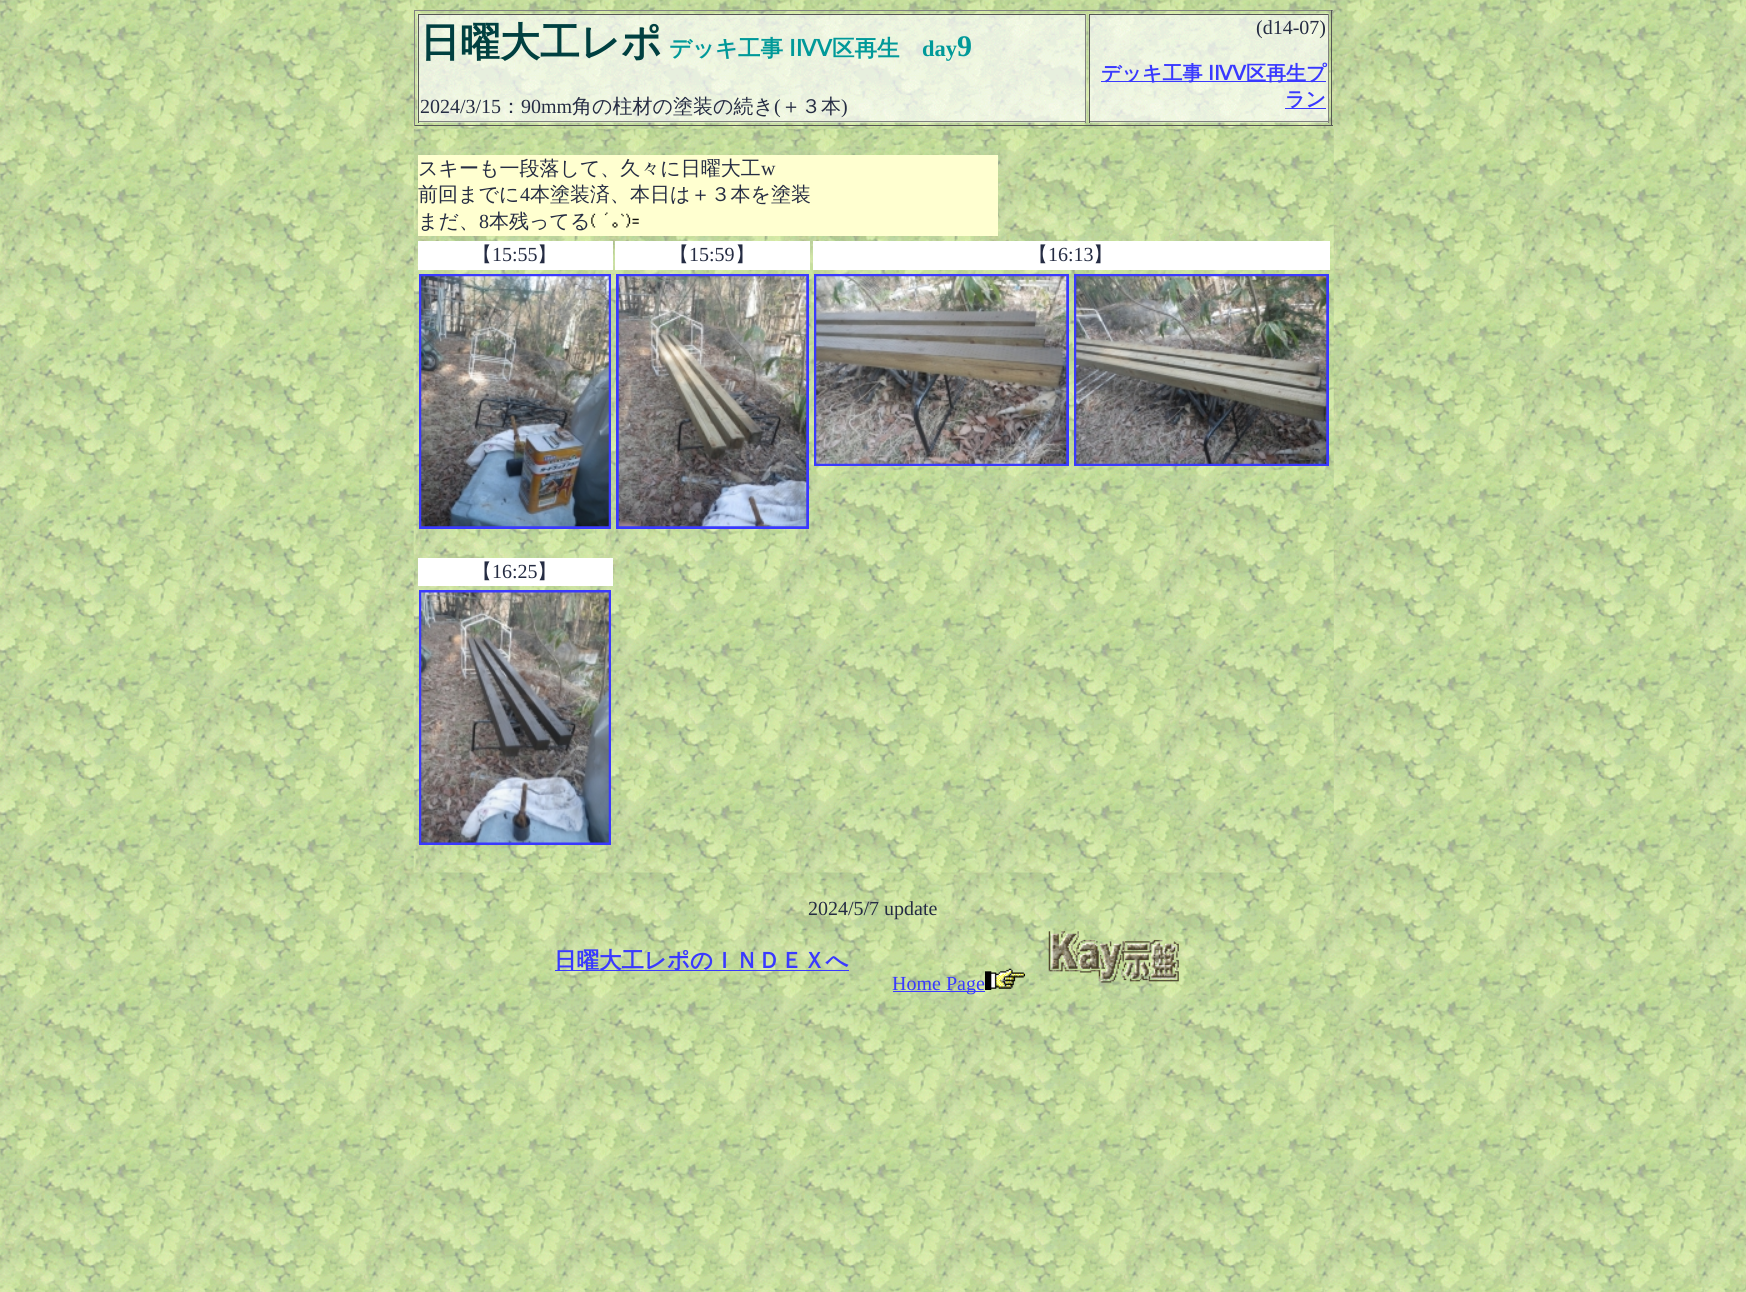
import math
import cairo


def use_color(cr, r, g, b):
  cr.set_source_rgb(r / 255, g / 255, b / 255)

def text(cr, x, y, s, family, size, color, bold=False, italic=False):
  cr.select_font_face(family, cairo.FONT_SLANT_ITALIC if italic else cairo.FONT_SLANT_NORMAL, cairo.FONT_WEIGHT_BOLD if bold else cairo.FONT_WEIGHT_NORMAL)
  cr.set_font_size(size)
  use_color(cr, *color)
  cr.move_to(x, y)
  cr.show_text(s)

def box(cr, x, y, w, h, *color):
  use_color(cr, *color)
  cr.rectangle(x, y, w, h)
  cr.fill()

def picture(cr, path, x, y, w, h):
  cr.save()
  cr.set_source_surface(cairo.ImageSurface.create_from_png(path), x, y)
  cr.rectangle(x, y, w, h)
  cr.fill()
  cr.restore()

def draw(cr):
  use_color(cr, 255, 255, 255)
  cr.paint()
  picture(cr, "img_01.png", 0, 0, 1746, 1292)
  box(cr, 414, 10, 919, 1, 128, 128, 128)
  box(cr, 1331, 10, 1, 116, 85, 85, 85)
  box(cr, 414, 125, 919, 1, 85, 85, 85)
  box(cr, 414, 10, 1, 116, 128, 128, 128)
  picture(cr, "img_02.png", 417, 13, 670, 110)
  box(cr, 418, 14, 668, 1, 85, 85, 85)
  box(cr, 1085, 14, 1, 109, 128, 128, 128)
  box(cr, 418, 121, 668, 1, 128, 128, 128)
  box(cr, 418, 14, 1, 109, 85, 85, 85)
  picture(cr, "img_03.png", 1088, 13, 241, 110)
  box(cr, 1089, 14, 240, 1, 85, 85, 85)
  box(cr, 1328, 14, 1, 109, 128, 128, 128)
  box(cr, 1089, 121, 240, 1, 128, 128, 128)
  box(cr, 1089, 14, 1, 109, 85, 85, 85)
  box(cr, 1101, 81, 225, 1, 57, 57, 255)
  box(cr, 1285, 108, 41, 1, 57, 57, 255)
  picture(cr, "img_04.png", 413, 128, 921, 745)
  box(cr, 418, 155, 580, 81, 255, 255, 208)
  picture(cr, "img_05.png", 591, 212, 48, 16)
  box(cr, 418, 241, 195, 29, 255, 255, 255)
  box(cr, 615, 241, 195, 29, 255, 255, 255)
  box(cr, 813, 241, 517, 29, 255, 255, 255)
  cr.rectangle(420.5, 275.5, 189, 252)
  use_color(cr, 57, 57, 255)
  cr.set_line_width(3)
  cr.stroke()
  picture(cr, "img_06.png", 421, 276, 188, 251)
  cr.rectangle(617.5, 275.5, 190, 252)
  cr.stroke()
  picture(cr, "img_07.png", 618, 276, 189, 251)
  cr.rectangle(815.5, 275.5, 252, 189)
  cr.stroke()
  picture(cr, "img_08.png", 816, 276, 251, 188)
  cr.rectangle(1075.5, 275.5, 252, 189)
  cr.stroke()
  picture(cr, "img_09.png", 1076, 276, 251, 188)
  box(cr, 418, 558, 195, 28, 255, 255, 255)
  cr.rectangle(420.5, 591.5, 189, 252)
  use_color(cr, 57, 57, 255)
  cr.stroke()
  picture(cr, "img_10.png", 421, 592, 188, 251)
  box(cr, 555, 970, 294, 1, 57, 57, 255)
  box(cr, 893, 991, 92, 1, 57, 57, 255)
  picture(cr, "img_11.png", 985, 968, 40, 22)
  picture(cr, "img_12.png", 1048, 931, 131, 52)
  text(cr, 420, 56, "日曜大工レポ", "WenQuanYi Zen Hei", 40, (0, 64, 64), bold=True)
  text(cr, 669, 56, "デッキ工事", "WenQuanYi Zen Hei", 22.5, (0, 153, 153), bold=True)
  text(cr, 789, 56, "ⅠⅣⅤ", "DejaVu Sans", 22.5, (0, 153, 153), bold=True)
  text(cr, 832, 56, "区再生", "WenQuanYi Zen Hei", 22.5, (0, 153, 153), bold=True)
  text(cr, 922, 56, "day", "Liberation Serif", 22.5, (0, 153, 153), bold=True)
  text(cr, 957, 56, "9", "Liberation Serif", 30, (0, 153, 153), bold=True)
  text(cr, 420, 113, "2024/3/15", "Liberation Serif", 20, (37, 44, 67))
  text(cr, 501, 113, "：", "WenQuanYi Zen Hei Medium", 20, (37, 44, 67))
  text(cr, 521, 113, "90mm", "Liberation Serif", 20, (37, 44, 67))
  text(cr, 572, 113, "角の柱材の塗装の続き", "WenQuanYi Zen Hei Medium", 20, (37, 44, 67))
  text(cr, 774, 113, "(", "Liberation Serif", 20, (37, 44, 67))
  text(cr, 781, 113, "＋３本", "WenQuanYi Zen Hei Medium", 20, (37, 44, 67))
  text(cr, 841, 113, ")", "Liberation Serif", 20, (37, 44, 67))
  text(cr, 1256, 34, "(d14-07)", "Liberation Serif", 20, (37, 44, 67))
  text(cr, 1101, 80, "デッキ工事", "WenQuanYi Zen Hei", 20, (57, 57, 255), bold=True)
  text(cr, 1208, 80, "ⅠⅣⅤ", "DejaVu Sans", 20, (57, 57, 255), bold=True)
  text(cr, 1246, 80, "区再生プ", "WenQuanYi Zen Hei", 20, (57, 57, 255), bold=True)
  text(cr, 1285, 106, "ラン", "WenQuanYi Zen Hei", 20, (57, 57, 255), bold=True)
  text(cr, 418, 175, "スキーも一段落して、久々に日曜大工", "WenQuanYi Zen Hei Medium", 20, (37, 44, 67))
  text(cr, 761, 175, "w", "Liberation Serif", 20, (37, 44, 67))
  text(cr, 418, 201, "前回までに", "WenQuanYi Zen Hei Medium", 20, (37, 44, 67))
  text(cr, 520, 201, "4", "Liberation Serif", 20, (37, 44, 67))
  text(cr, 530, 201, "本塗装済、本日は＋３本を塗装", "WenQuanYi Zen Hei Medium", 20, (37, 44, 67))
  text(cr, 418, 228, "まだ、", "WenQuanYi Zen Hei Medium", 20, (37, 44, 67))
  text(cr, 479, 228, "8", "Liberation Serif", 20, (37, 44, 67))
  text(cr, 489, 228, "本残ってる", "WenQuanYi Zen Hei Medium", 20, (37, 44, 67))
  text(cr, 472, 261, "【", "WenQuanYi Zen Hei Medium", 20, (37, 44, 67))
  text(cr, 492, 261, "15:55", "Liberation Serif", 20, (37, 44, 67))
  text(cr, 537, 261, "】", "WenQuanYi Zen Hei Medium", 20, (37, 44, 67))
  text(cr, 669, 261, "【", "WenQuanYi Zen Hei Medium", 20, (37, 44, 67))
  text(cr, 689, 261, "15:59", "Liberation Serif", 20, (37, 44, 67))
  text(cr, 735, 261, "】", "WenQuanYi Zen Hei Medium", 20, (37, 44, 67))
  text(cr, 1028, 261, "【", "WenQuanYi Zen Hei Medium", 20, (37, 44, 67))
  text(cr, 1048, 261, "16:13", "Liberation Serif", 20, (37, 44, 67))
  text(cr, 1093, 261, "】", "WenQuanYi Zen Hei Medium", 20, (37, 44, 67))
  text(cr, 472, 578, "【", "WenQuanYi Zen Hei Medium", 20, (37, 44, 67))
  text(cr, 492, 578, "16:25", "Liberation Serif", 20, (37, 44, 67))
  text(cr, 537, 578, "】", "WenQuanYi Zen Hei Medium", 20, (37, 44, 67))
  text(cr, 808, 915, "2024/5/7 update", "Liberation Serif", 20, (37, 44, 67))
  text(cr, 554, 968, "日曜大工レポのＩＮＤＥＸへ", "WenQuanYi Zen Hei", 22.5, (57, 57, 255), bold=True)
  text(cr, 892, 990, "Home Page", "Liberation Serif", 20, (57, 57, 255))


surface = cairo.ImageSurface(cairo.FORMAT_RGB24, 1746, 1292)
cr = cairo.Context(surface)
options = cairo.FontOptions()
options.set_hint_metrics(cairo.HINT_METRICS_OFF)
options.set_hint_style(cairo.HINT_STYLE_NONE)
cr.set_font_options(options)
cr.set_miter_limit(4)
draw(cr)
surface.write_to_png("out.png")
